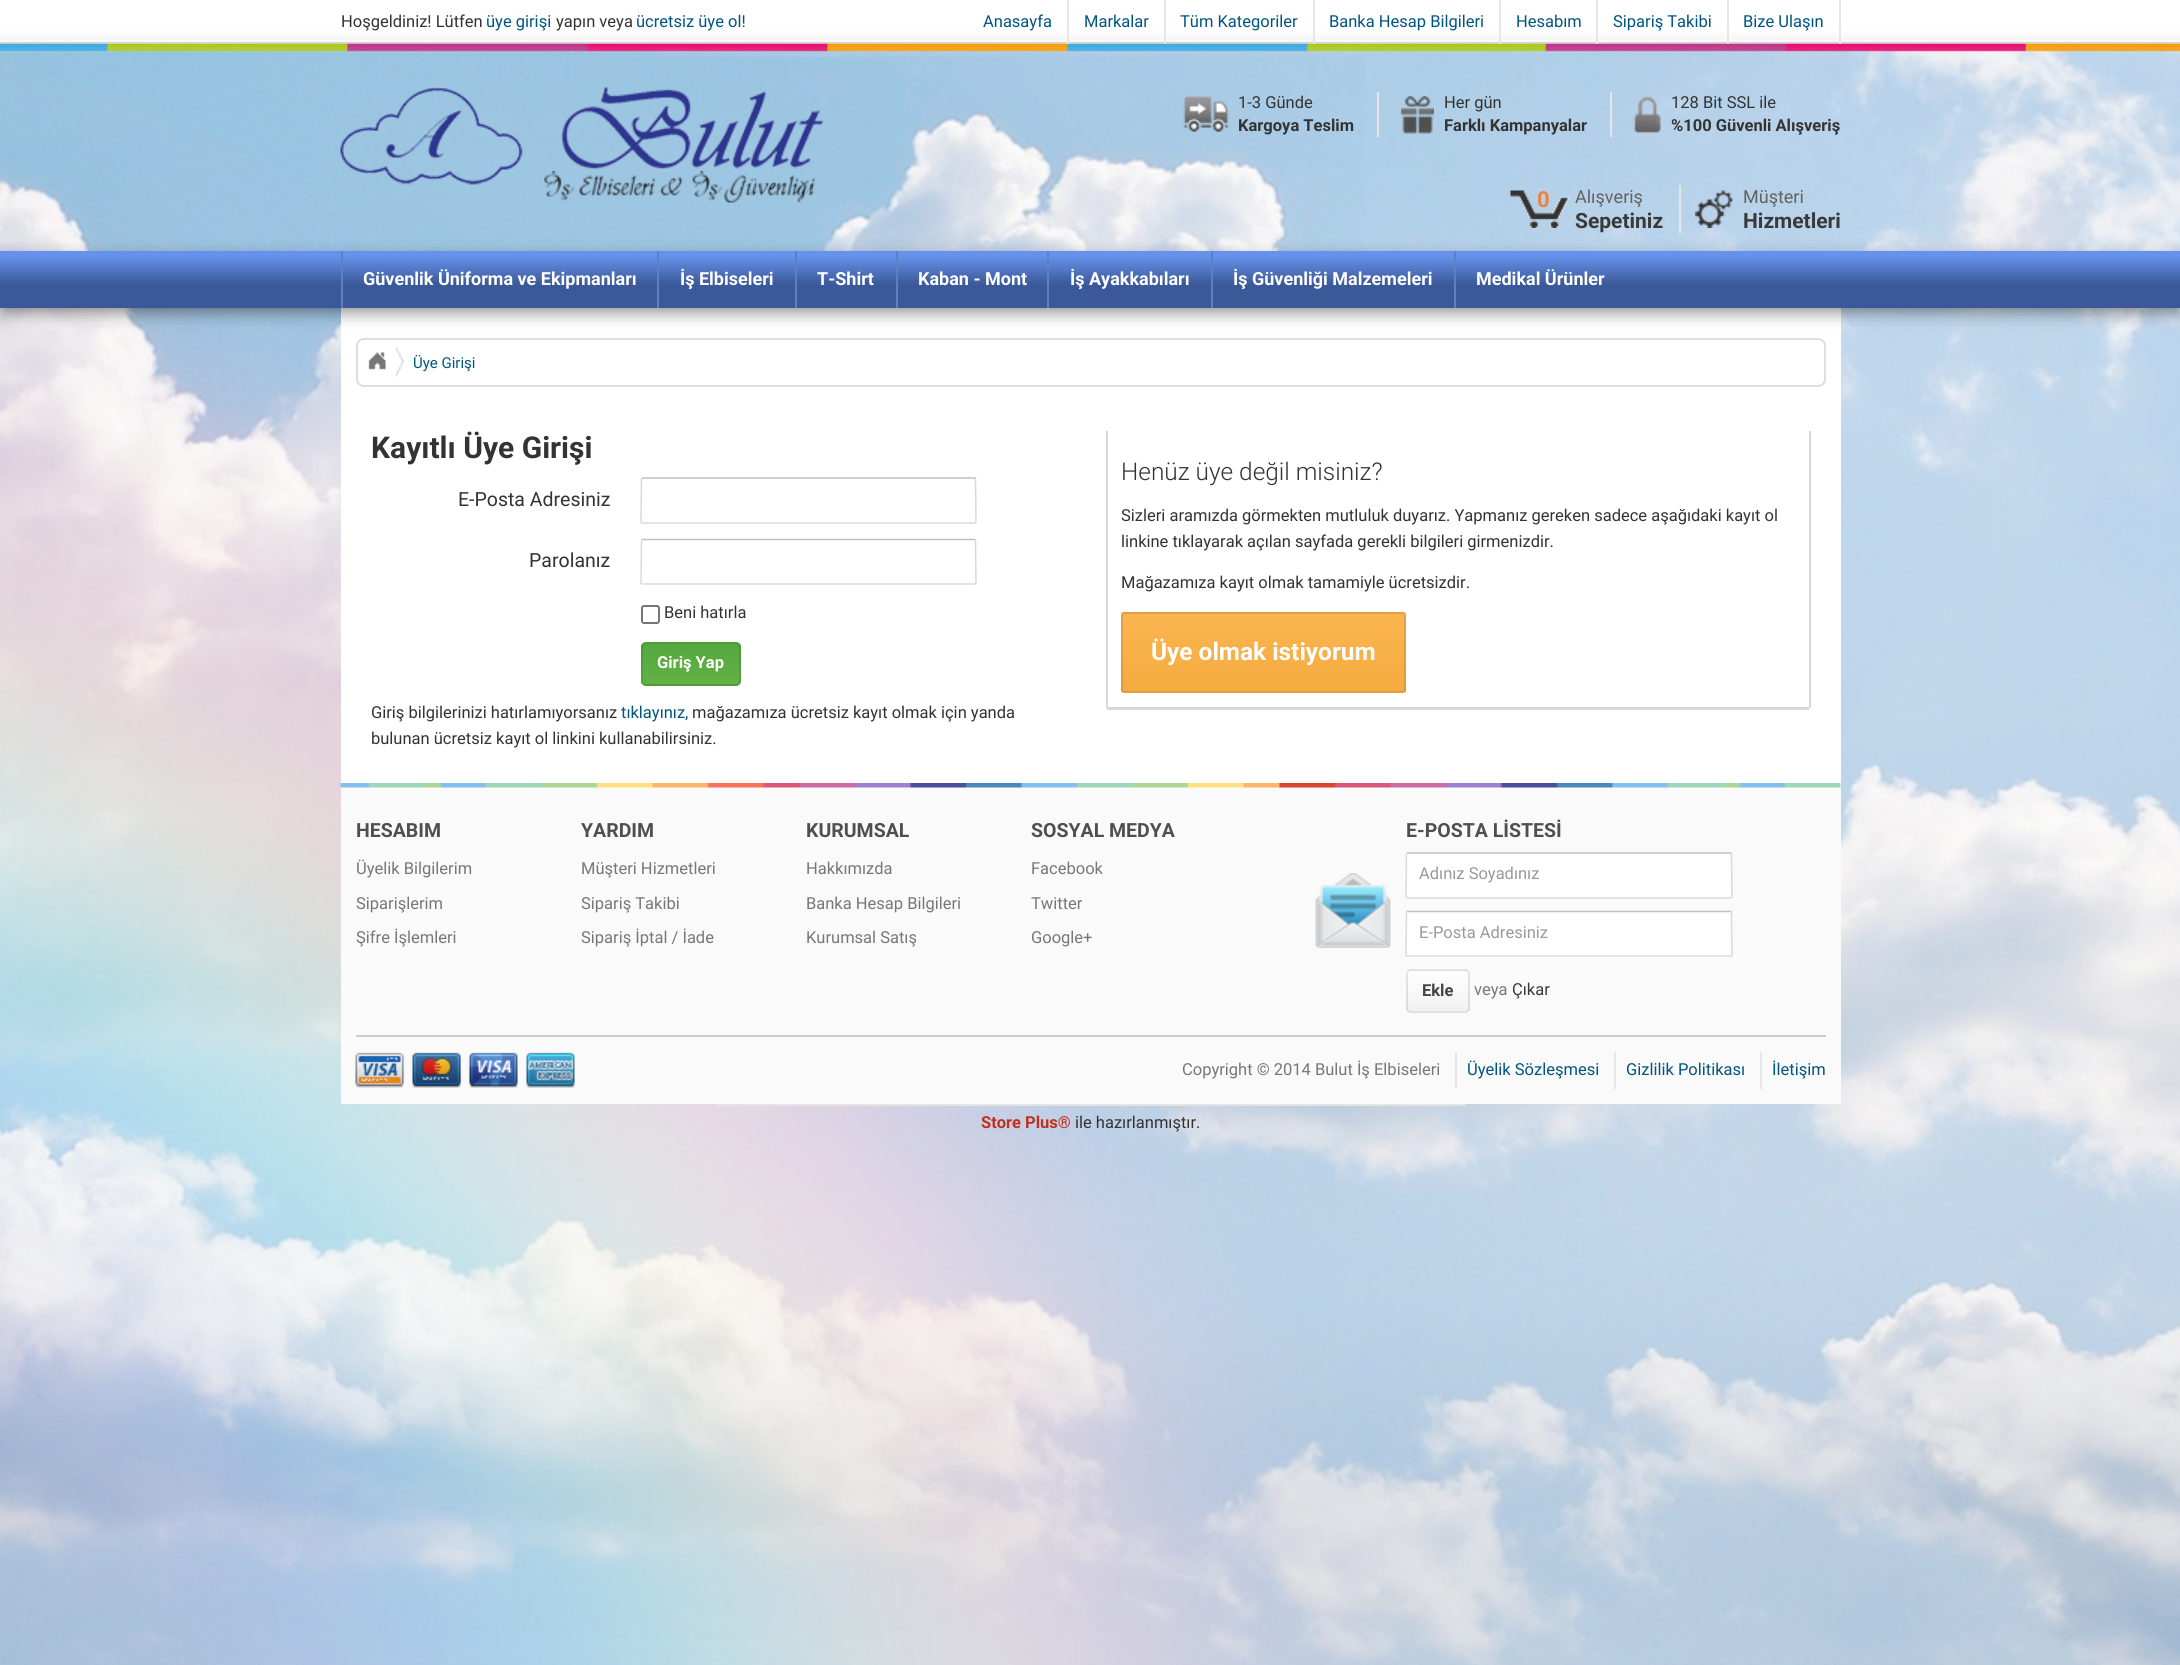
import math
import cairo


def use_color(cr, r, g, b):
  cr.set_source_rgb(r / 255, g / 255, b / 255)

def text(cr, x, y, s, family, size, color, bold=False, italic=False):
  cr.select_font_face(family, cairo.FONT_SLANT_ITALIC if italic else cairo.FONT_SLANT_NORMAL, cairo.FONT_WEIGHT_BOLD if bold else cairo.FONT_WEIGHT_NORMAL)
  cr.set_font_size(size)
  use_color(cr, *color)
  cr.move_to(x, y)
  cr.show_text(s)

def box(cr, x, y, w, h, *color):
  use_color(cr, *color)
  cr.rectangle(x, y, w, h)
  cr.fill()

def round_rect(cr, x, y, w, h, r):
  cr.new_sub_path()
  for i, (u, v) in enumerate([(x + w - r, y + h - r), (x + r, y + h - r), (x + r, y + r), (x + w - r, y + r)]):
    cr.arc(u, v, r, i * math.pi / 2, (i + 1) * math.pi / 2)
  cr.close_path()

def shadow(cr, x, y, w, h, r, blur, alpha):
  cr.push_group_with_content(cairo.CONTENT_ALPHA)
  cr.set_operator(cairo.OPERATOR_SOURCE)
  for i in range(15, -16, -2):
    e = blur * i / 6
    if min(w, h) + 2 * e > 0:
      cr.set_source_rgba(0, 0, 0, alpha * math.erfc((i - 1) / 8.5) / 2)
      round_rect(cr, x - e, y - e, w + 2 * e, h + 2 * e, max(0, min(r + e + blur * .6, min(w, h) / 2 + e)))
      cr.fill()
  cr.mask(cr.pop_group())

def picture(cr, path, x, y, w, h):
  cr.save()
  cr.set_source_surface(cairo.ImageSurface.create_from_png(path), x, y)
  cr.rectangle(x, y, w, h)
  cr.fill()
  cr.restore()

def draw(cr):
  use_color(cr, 255, 255, 255)
  cr.paint()
  picture(cr, "img_01.png", 0, 43, 2180, 1622)
  picture(cr, "img_02.png", 0, 0, 2180, 44)
  box(cr, 1067, 0, 2, 44, 230, 230, 230)
  box(cr, 1164, 0, 2, 44, 230, 230, 230)
  box(cr, 1313, 0, 2, 44, 230, 230, 230)
  box(cr, 1499, 0, 2, 44, 230, 230, 230)
  box(cr, 1596, 0, 2, 44, 230, 230, 230)
  box(cr, 1727, 0, 2, 44, 230, 230, 230)
  box(cr, 1839, 0, 2, 44, 230, 230, 230)
  picture(cr, "img_03.png", 340, 87, 484, 116)
  picture(cr, "img_04.png", 1183, 96, 46, 36)
  box(cr, 1377, 92, 2, 45, 230, 230, 230)
  picture(cr, "img_05.png", 1401, 96, 33, 38)
  box(cr, 1610, 92, 2, 45, 230, 230, 230)
  picture(cr, "img_06.png", 1633, 96, 28, 38)
  cr.save()
  cr.set_fill_rule(cairo.FILL_RULE_EVEN_ODD)
  cr.new_path()
  cr.move_to(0, 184)
  cr.line_to(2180, 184)
  cr.line_to(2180, 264)
  cr.line_to(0, 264)
  cr.close_path()
  cr.move_to(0, 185)
  cr.line_to(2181, 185)
  cr.line_to(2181, 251)
  cr.line_to(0, 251)
  cr.close_path()
  cr.clip()
  use_color(cr, 178, 178, 178)
  shadow(cr, 0, 191, 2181, 66, 0, 2, 1)
  cr.restore()
  picture(cr, "img_07.png", 1510, 190, 59, 38)
  box(cr, 1679, 185, 2, 48, 230, 230, 230)
  picture(cr, "img_08.png", 1695, 190, 38, 38)
  box(cr, 341, 308, 1500, 475, 255, 255, 255)
  round_rect(cr, 357, 339, 1468, 47, 7)
  use_color(cr, 222, 222, 222)
  cr.stroke()
  use_color(cr, 0, 0, 0)
  shadow(cr, 3, 260, 2175, 51, 0, 9, 0.5)
  gradient = cairo.LinearGradient(1091, 250, 1091, 308)
  gradient.add_color_stop_rgba(0.1, 0.4, 0.569, 0.925, 1)
  gradient.add_color_stop_rgba(0.6, 0.231, 0.349, 0.596, 1)
  cr.set_source(gradient)
  cr.rectangle(0, 251, 2180, 57)
  cr.fill()
  box(cr, 341, 251, 2, 57, 92, 127, 201)
  box(cr, 657, 251, 2, 57, 92, 127, 201)
  box(cr, 795, 251, 2, 57, 92, 127, 201)
  box(cr, 896, 251, 2, 57, 92, 127, 201)
  box(cr, 1047, 251, 2, 57, 92, 127, 201)
  box(cr, 1211, 251, 2, 57, 92, 127, 201)
  box(cr, 1454, 251, 2, 57, 92, 127, 201)
  picture(cr, "img_09.png", 396, 346, 8, 31)
  picture(cr, "img_10.png", 368, 352, 18, 18)
  box(cr, 642, 477, 334, 2, 208, 208, 208)
  cr.new_path()
  cr.move_to(975.5, 478)
  cr.line_to(976, 522)
  cr.line_to(975, 523)
  cr.line_to(642, 523)
  cr.line_to(641, 522)
  cr.line_to(641.5, 478)
  use_color(cr, 217, 217, 217)
  cr.set_line_width(1.5)
  cr.stroke()
  cr.new_path()
  cr.move_to(641.5, 539.5)
  cr.line_to(975.5, 539.5)
  use_color(cr, 192, 192, 192)
  cr.stroke()
  cr.new_path()
  cr.move_to(975.5, 539.5)
  cr.line_to(976, 583.5)
  cr.line_to(975, 584)
  cr.line_to(642, 584)
  cr.line_to(641, 583.5)
  cr.line_to(641.5, 539.5)
  use_color(cr, 217, 217, 217)
  cr.stroke()
  round_rect(cr, 642, 606, 17, 17, 2)
  use_color(cr, 118, 118, 118)
  cr.set_line_width(2)
  cr.stroke()
  use_color(cr, 90, 172, 65)
  round_rect(cr, 641, 642, 100, 44, 5)
  cr.fill()
  cr.save()
  round_rect(cr, 641, 642, 100, 44, 5)
  cr.clip()
  gradient = cairo.LinearGradient(691, 644, 691, 684)
  gradient.add_color_stop_rgba(0, 0.325, 0.663, 0.247, 1)
  gradient.add_color_stop_rgba(1, 0.396, 0.69, 0.271, 1)
  cr.set_source(gradient)
  cr.rectangle(641, 644, 100, 40)
  cr.fill()
  cr.restore()
  round_rect(cr, 642, 643, 98, 42, 4)
  cr.set_source_rgba(0, 0, 0, 0.1)
  cr.stroke()
  box(cr, 1809, 431, 2, 277, 216, 216, 216)
  box(cr, 1107, 707, 702, 3, 216, 216, 216)
  box(cr, 1106, 431, 2, 277, 216, 216, 216)
  use_color(cr, 249, 176, 73)
  round_rect(cr, 1121, 612, 285, 81, 3)
  cr.fill()
  cr.save()
  round_rect(cr, 1121, 612, 285, 81, 3)
  cr.clip()
  gradient = cairo.LinearGradient(1263, 614, 1263, 692)
  gradient.add_color_stop_rgba(0, 0.984, 0.706, 0.314, 1)
  gradient.add_color_stop_rgba(1, 0.961, 0.671, 0.247, 1)
  cr.set_source(gradient)
  cr.rectangle(1121, 614, 285, 78)
  cr.fill()
  cr.restore()
  round_rect(cr, 1122, 613, 283, 79, 2)
  cr.set_source_rgba(0, 0, 0, 0.1)
  cr.stroke()
  box(cr, 341, 783, 1500, 321, 250, 250, 250)
  picture(cr, "img_11.png", 340, 783, 1501, 5)
  picture(cr, "img_12.png", 1315, 873, 76, 75)
  use_color(cr, 255, 255, 255)
  round_rect(cr, 1406, 852, 327, 47, 1.5)
  cr.fill()
  box(cr, 1407, 852, 325, 2, 208, 208, 208)
  cr.new_path()
  cr.move_to(1731.5, 853)
  cr.line_to(1732, 897)
  cr.line_to(1731, 898)
  cr.line_to(1407, 898)
  cr.line_to(1406, 897)
  cr.line_to(1406.5, 853)
  use_color(cr, 217, 217, 217)
  cr.set_line_width(1.5)
  cr.stroke()
  use_color(cr, 255, 255, 255)
  round_rect(cr, 1406, 911, 327, 46, 1.5)
  cr.fill()
  cr.new_path()
  cr.move_to(1406.5, 911.5)
  cr.line_to(1731.5, 911.5)
  use_color(cr, 192, 192, 192)
  cr.stroke()
  cr.new_path()
  cr.move_to(1731.5, 911.5)
  cr.line_to(1732, 955.5)
  cr.line_to(1731, 956)
  cr.line_to(1407, 956)
  cr.line_to(1406, 955.5)
  cr.line_to(1406.5, 911.5)
  use_color(cr, 217, 217, 217)
  cr.stroke()
  cr.save()
  round_rect(cr, 1406, 969, 64, 44, 5)
  cr.clip()
  gradient = cairo.LinearGradient(1438, 971, 1438, 1011)
  gradient.add_color_stop_rgba(0, 1, 1, 1, 1)
  gradient.add_color_stop_rgba(1, 0.945, 0.945, 0.945, 1)
  cr.set_source(gradient)
  cr.rectangle(1406, 971, 64, 40)
  cr.fill()
  cr.restore()
  round_rect(cr, 1407, 970, 62, 42, 4)
  cr.set_source_rgba(0, 0, 0, 0.1)
  cr.set_line_width(2)
  cr.stroke()
  box(cr, 356, 1035, 1470, 2, 204, 204, 204)
  picture(cr, "img_13.png", 355, 1052, 220, 36)
  box(cr, 1455, 1052, 2, 37, 230, 230, 230)
  box(cr, 1614, 1052, 2, 37, 230, 230, 230)
  box(cr, 1760, 1052, 2, 37, 230, 230, 230)
  box(cr, 716, 1104, 750, 2, 228, 228, 228)
  text(cr, 341, 27, "Hoşgeldiniz! Lütfen", "Roboto", 16.5, (51, 51, 51))
  text(cr, 486, 27, "üye girişi", "Roboto", 16.5, (0, 85, 128))
  text(cr, 556, 27, "yapın veya", "Roboto", 16.5, (51, 51, 51))
  text(cr, 636, 27, "ücretsiz üye ol!", "Roboto", 16.5, (0, 85, 128))
  text(cr, 983, 27, "Anasayfa", "Roboto", 16.5, (0, 85, 128))
  text(cr, 1084, 27, "Markalar", "Roboto", 16.5, (0, 85, 128))
  text(cr, 1180, 27, "Tüm Kategoriler", "Roboto", 16.5, (0, 85, 128))
  text(cr, 1329, 27, "Banka Hesap Bilgileri", "Roboto", 16.5, (0, 85, 128))
  text(cr, 1516, 27, "Hesabım", "Roboto", 16.5, (0, 85, 128))
  text(cr, 1613, 27, "Sipariş Takibi", "Roboto", 16.5, (0, 85, 128))
  text(cr, 1743, 27, "Bize Ulaşın", "Roboto", 16.5, (0, 85, 128))
  text(cr, 1238, 108, "1-3 Günde", "Roboto", 16.5, (51, 51, 51))
  text(cr, 1238, 131, "Kargoya Teslim", "Roboto", 16.5, (51, 51, 51), bold=True)
  text(cr, 1444, 108, "Her gün", "Roboto", 16.5, (51, 51, 51))
  text(cr, 1444, 131, "Farklı Kampanyalar", "Roboto", 16.5, (51, 51, 51), bold=True)
  text(cr, 1671, 108, "128 Bit SSL ile", "Roboto", 16.5, (51, 51, 51))
  text(cr, 1671, 131, "%100 Güvenli Alışveriş", "Roboto", 16.5, (51, 51, 51), bold=True)
  text(cr, 1537, 207, "0", "Roboto", 22, (239, 129, 58), bold=True)
  text(cr, 1575, 203, "Alışveriş", "Roboto", 18, (98, 98, 98))
  text(cr, 1575, 228, "Sepetiniz", "Roboto", 21, (57, 57, 57), bold=True)
  text(cr, 1743, 203, "Müşteri", "Roboto", 18, (98, 98, 98))
  text(cr, 1743, 228, "Hizmetleri", "Roboto", 21, (57, 57, 57), bold=True)
  text(cr, 363, 285, "Güvenlik Üniforma ve Ekipmanları", "Roboto", 18, (255, 255, 255), bold=True)
  text(cr, 680, 285, "İş Elbiseleri", "Roboto", 18, (255, 255, 255), bold=True)
  text(cr, 817, 285, "T-Shirt", "Roboto", 18, (255, 255, 255), bold=True)
  text(cr, 918, 285, "Kaban - Mont", "Roboto", 18, (255, 255, 255), bold=True)
  text(cr, 1070, 285, "İş Ayakkabıları", "Roboto", 18, (255, 255, 255), bold=True)
  text(cr, 1233, 285, "İş Güvenliği Malzemeleri", "Roboto", 18, (255, 255, 255), bold=True)
  text(cr, 1476, 285, "Medikal Ürünler", "Roboto", 18, (255, 255, 255), bold=True)
  text(cr, 413, 368, "Üye Girişi", "Roboto", 15, (0, 85, 128))
  text(cr, 371, 458, "Kayıtlı Üye Girişi", "Roboto", 30, (51, 51, 51), bold=True)
  text(cr, 458, 506, "E-Posta Adresiniz", "Roboto", 19.5, (51, 51, 51))
  text(cr, 529, 567, "Parolanız", "Roboto", 19.5, (51, 51, 51))
  text(cr, 664, 618, "Beni hatırla", "Roboto", 16.5, (51, 51, 51))
  text(cr, 657, 668, "Giriş Yap", "Roboto", 16.5, (255, 255, 255), bold=True)
  text(cr, 371, 718, "Giriş bilgilerinizi hatırlamıyorsanız", "Roboto", 16.5, (51, 51, 51))
  text(cr, 621, 718, "tıklayınız,", "Roboto", 16.5, (0, 85, 128))
  text(cr, 692, 718, "mağazamıza ücretsiz kayıt olmak için yanda", "Roboto", 16.5, (51, 51, 51))
  text(cr, 371, 744, "bulunan ücretsiz kayıt ol linkini kullanabilirsiniz.", "Roboto", 16.5, (51, 51, 51))
  text(cr, 1121, 480, "Henüz üye değil misiniz?", "Roboto Light", 24.4, (51, 51, 51))
  text(cr, 1121, 521, "Sizleri aramızda görmekten mutluluk duyarız. Yapmanız gereken sadece aşağıdaki kayıt ol", "Roboto", 16.5, (51, 51, 51))
  text(cr, 1121, 547, "linkine tıklayarak açılan sayfada gerekli bilgileri girmenizdir.", "Roboto", 16.5, (51, 51, 51))
  text(cr, 1121, 588, "Mağazamıza kayıt olmak tamamiyle ücretsizdir.", "Roboto", 16.5, (51, 51, 51))
  text(cr, 1151, 660, "Üye olmak istiyorum", "Roboto", 24.4, (255, 255, 255), bold=True)
  text(cr, 356, 837, "HESABIM", "Roboto", 19.5, (79, 79, 79), bold=True)
  text(cr, 356, 874, "Üyelik Bilgilerim", "Roboto", 16.5, (119, 119, 119))
  text(cr, 356, 909, "Siparişlerim", "Roboto", 16.5, (119, 119, 119))
  text(cr, 356, 943, "Şifre İşlemleri", "Roboto", 16.5, (119, 119, 119))
  text(cr, 581, 837, "YARDIM", "Roboto", 19.5, (79, 79, 79), bold=True)
  text(cr, 581, 874, "Müşteri Hizmetleri", "Roboto", 16.5, (119, 119, 119))
  text(cr, 581, 909, "Sipariş Takibi", "Roboto", 16.5, (119, 119, 119))
  text(cr, 581, 943, "Sipariş İptal / İade", "Roboto", 16.5, (119, 119, 119))
  text(cr, 806, 837, "KURUMSAL", "Roboto", 19.5, (79, 79, 79), bold=True)
  text(cr, 806, 874, "Hakkımızda", "Roboto", 16.5, (119, 119, 119))
  text(cr, 806, 909, "Banka Hesap Bilgileri", "Roboto", 16.5, (119, 119, 119))
  text(cr, 806, 943, "Kurumsal Satış", "Roboto", 16.5, (119, 119, 119))
  text(cr, 1031, 837, "SOSYAL MEDYA", "Roboto", 19.5, (79, 79, 79), bold=True)
  text(cr, 1031, 874, "Facebook", "Roboto", 16.5, (119, 119, 119))
  text(cr, 1031, 909, "Twitter", "Roboto", 16.5, (119, 119, 119))
  text(cr, 1031, 943, "Google+", "Roboto", 16.5, (119, 119, 119))
  text(cr, 1406, 837, "E-POSTA LİSTESİ", "Roboto", 19.5, (79, 79, 79), bold=True)
  text(cr, 1419, 879, "Adınız Soyadınız", "Roboto", 16.5, (153, 153, 153))
  text(cr, 1419, 938, "E-Posta Adresiniz", "Roboto", 16.5, (153, 153, 153))
  text(cr, 1422, 996, "Ekle", "Roboto", 16.5, (68, 68, 68), bold=True)
  text(cr, 1474, 995, "veya", "Roboto", 16.5, (119, 119, 119))
  text(cr, 1512, 995, "Çıkar", "Roboto", 16.5, (57, 57, 57))
  text(cr, 1182, 1075, "Copyright © 2014 Bulut İş Elbiseleri", "Roboto", 16.5, (119, 119, 119))
  text(cr, 1467, 1075, "Üyelik Sözleşmesi", "Roboto", 16.5, (0, 85, 128))
  text(cr, 1626, 1075, "Gizlilik Politikası", "Roboto", 16.5, (0, 85, 128))
  text(cr, 1772, 1075, "İletişim", "Roboto", 16.5, (0, 85, 128))
  text(cr, 981, 1128, "Store Plus®", "Roboto", 16.5, (192, 49, 29), bold=True)
  text(cr, 1075, 1128, "ile hazırlanmıştır.", "Roboto", 16.5, (51, 51, 51))


surface = cairo.ImageSurface(cairo.FORMAT_RGB24, 2180, 1665)
cr = cairo.Context(surface)
options = cairo.FontOptions()
options.set_hint_metrics(cairo.HINT_METRICS_OFF)
options.set_hint_style(cairo.HINT_STYLE_NONE)
cr.set_font_options(options)
cr.set_miter_limit(4)
draw(cr)
surface.write_to_png("out.png")
